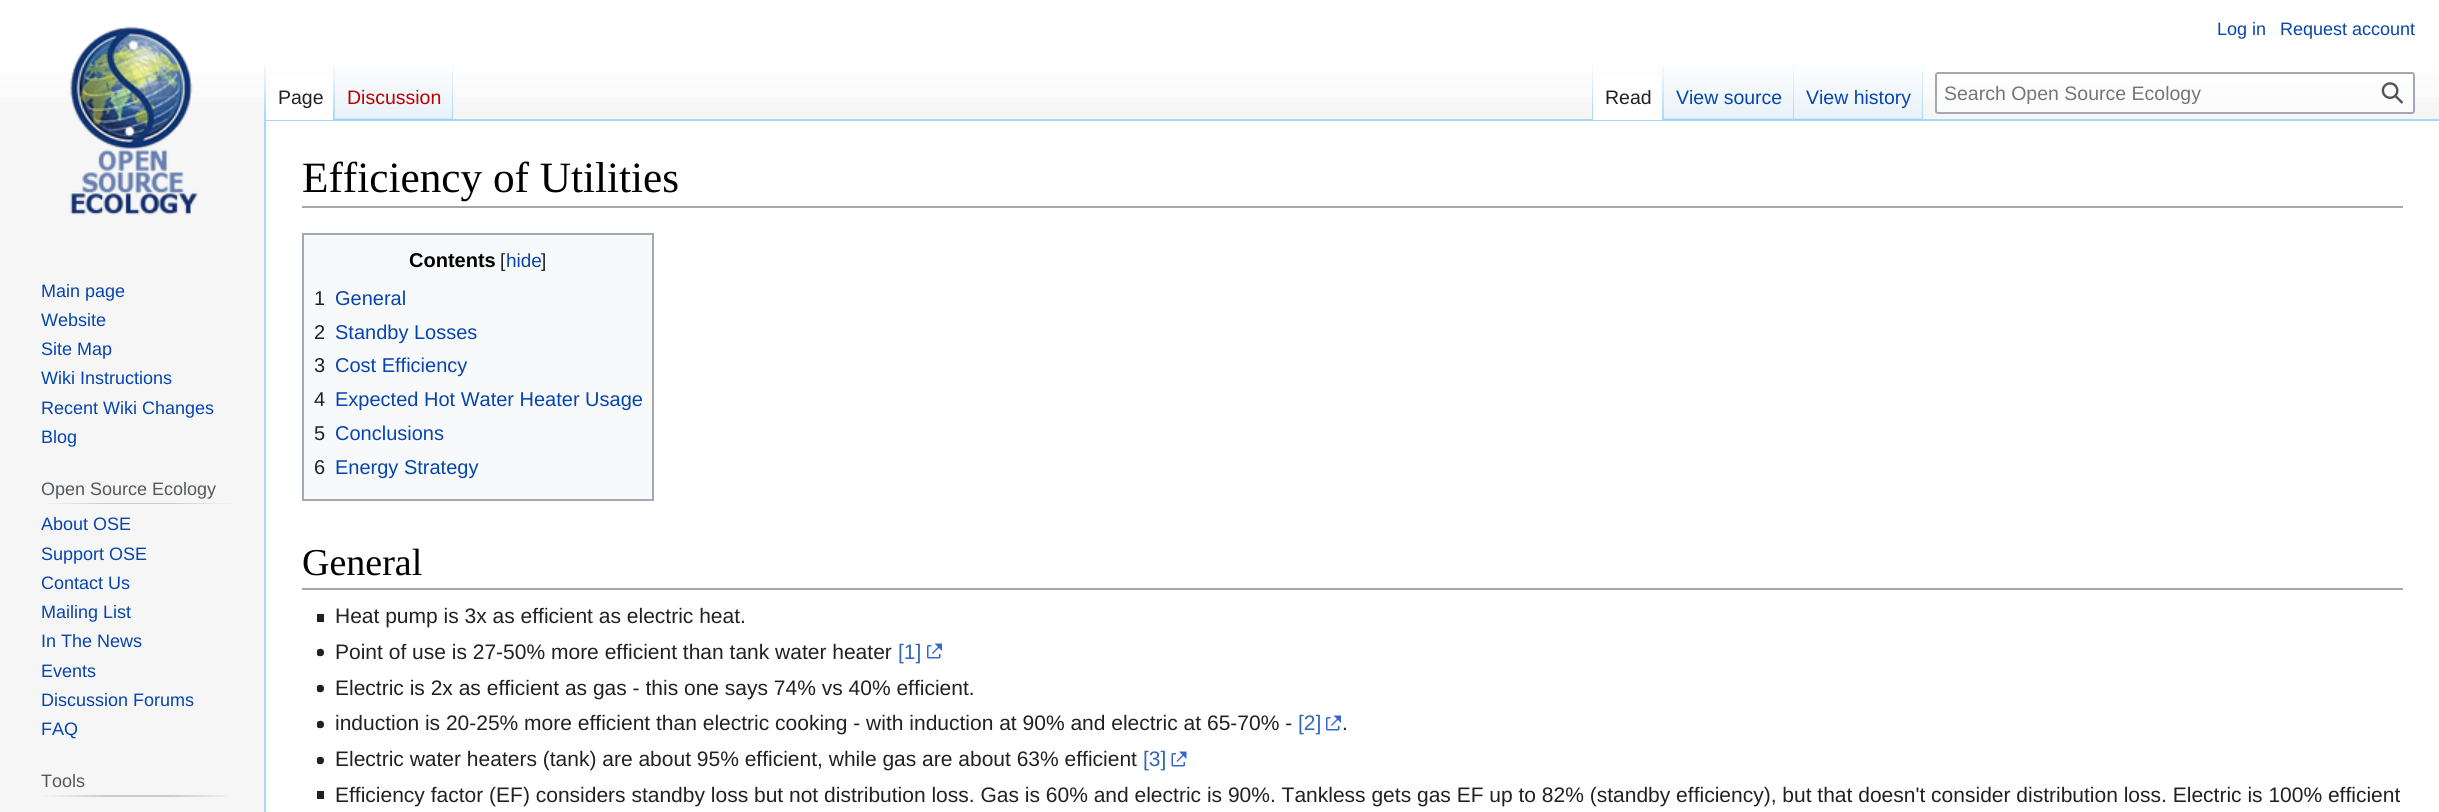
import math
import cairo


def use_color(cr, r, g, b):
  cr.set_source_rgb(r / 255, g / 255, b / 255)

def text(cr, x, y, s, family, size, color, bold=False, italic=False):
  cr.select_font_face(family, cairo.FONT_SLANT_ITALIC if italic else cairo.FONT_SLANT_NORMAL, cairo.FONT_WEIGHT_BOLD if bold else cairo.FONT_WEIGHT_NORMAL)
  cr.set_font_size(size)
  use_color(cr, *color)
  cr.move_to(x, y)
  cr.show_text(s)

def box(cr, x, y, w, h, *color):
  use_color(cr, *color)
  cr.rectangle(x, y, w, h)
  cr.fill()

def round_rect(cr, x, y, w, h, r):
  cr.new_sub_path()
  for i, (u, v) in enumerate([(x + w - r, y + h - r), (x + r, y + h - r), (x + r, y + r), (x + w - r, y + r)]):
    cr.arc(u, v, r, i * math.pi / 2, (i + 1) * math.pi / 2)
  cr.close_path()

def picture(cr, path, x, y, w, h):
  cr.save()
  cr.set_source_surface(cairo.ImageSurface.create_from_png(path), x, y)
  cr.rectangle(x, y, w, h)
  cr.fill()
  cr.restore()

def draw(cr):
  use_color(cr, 246, 246, 246)
  cr.paint()
  gradient = cairo.LinearGradient(1220, 0, 1220, 120)
  gradient.add_color_stop_rgba(0.5, 1, 1, 1, 1)
  gradient.add_color_stop_rgba(1, 0.965, 0.965, 0.965, 1)
  cr.set_source(gradient)
  cr.rectangle(0, 0, 2439, 103)
  cr.fill()
  box(cr, 264, 119, 2175, 2, 167, 215, 249)
  box(cr, 264, 119, 2, 693, 167, 215, 249)
  gradient = cairo.LinearGradient(265, 60, 265, 120)
  gradient.add_color_stop_rgba(0, 0.655, 0.843, 0.976, 0)
  gradient.add_color_stop_rgba(1, 0.655, 0.843, 0.976, 1)
  cr.set_source(gradient)
  cr.rectangle(264, 60, 2, 60)
  cr.fill()
  box(cr, 266, 77, 67, 43, 255, 255, 255)
  gradient = cairo.LinearGradient(334, 60, 334, 120)
  gradient.add_color_stop_rgba(0, 1, 1, 1, 1)
  gradient.add_color_stop_rgba(1, 0.655, 0.843, 0.976, 1)
  cr.set_source(gradient)
  cr.rectangle(333, 60, 2, 60)
  cr.fill()
  gradient = cairo.LinearGradient(394, 120, 394, 60)
  gradient.add_color_stop_rgba(0, 0.467, 0.757, 0.965, 1)
  gradient.add_color_stop_rgba(0.03, 0.91, 0.949, 0.973, 1)
  gradient.add_color_stop_rgba(1, 1, 1, 1, 1)
  cr.set_source(gradient)
  cr.rectangle(335, 69, 118, 51)
  cr.fill()
  gradient = cairo.LinearGradient(452, 60, 452, 120)
  gradient.add_color_stop_rgba(0, 0.655, 0.843, 0.976, 0)
  gradient.add_color_stop_rgba(1, 0.655, 0.843, 0.976, 1)
  cr.set_source(gradient)
  cr.rectangle(452, 60, 1, 60)
  cr.fill()
  gradient = cairo.LinearGradient(1592, 60, 1592, 120)
  gradient.add_color_stop_rgba(0, 0.655, 0.843, 0.976, 0)
  gradient.add_color_stop_rgba(1, 0.655, 0.843, 0.976, 1)
  cr.set_source(gradient)
  cr.rectangle(1592, 60, 1, 60)
  cr.fill()
  box(cr, 1593, 77, 69, 43, 255, 255, 255)
  gradient = cairo.LinearGradient(1663, 60, 1663, 120)
  gradient.add_color_stop_rgba(0, 1, 1, 1, 1)
  gradient.add_color_stop_rgba(1, 0.655, 0.843, 0.976, 1)
  cr.set_source(gradient)
  cr.rectangle(1662, 60, 2, 60)
  cr.fill()
  gradient = cairo.LinearGradient(1729, 120, 1729, 60)
  gradient.add_color_stop_rgba(0, 0.467, 0.757, 0.965, 1)
  gradient.add_color_stop_rgba(0.03, 0.91, 0.949, 0.973, 1)
  gradient.add_color_stop_rgba(1, 1, 1, 1, 1)
  cr.set_source(gradient)
  cr.rectangle(1664, 69, 130, 51)
  cr.fill()
  gradient = cairo.LinearGradient(1793, 60, 1793, 120)
  gradient.add_color_stop_rgba(0, 0.655, 0.843, 0.976, 0)
  gradient.add_color_stop_rgba(1, 0.655, 0.843, 0.976, 1)
  cr.set_source(gradient)
  cr.rectangle(1793, 60, 1, 60)
  cr.fill()
  gradient = cairo.LinearGradient(1859, 120, 1859, 60)
  gradient.add_color_stop_rgba(0, 0.467, 0.757, 0.965, 1)
  gradient.add_color_stop_rgba(0.03, 0.91, 0.949, 0.973, 1)
  gradient.add_color_stop_rgba(1, 1, 1, 1, 1)
  cr.set_source(gradient)
  cr.rectangle(1794, 69, 129, 51)
  cr.fill()
  gradient = cairo.LinearGradient(1922, 60, 1922, 120)
  gradient.add_color_stop_rgba(0, 0.655, 0.843, 0.976, 0)
  gradient.add_color_stop_rgba(1, 0.655, 0.843, 0.976, 1)
  cr.set_source(gradient)
  cr.rectangle(1922, 60, 1, 60)
  cr.fill()
  cr.set_source_rgba(1, 1, 1, 0.5)
  round_rect(cr, 1936, 73, 478, 40, 2)
  cr.fill_preserve()
  use_color(cr, 162, 169, 177)
  cr.stroke()
  picture(cr, "img_01.png", 2381, 82, 23, 22)
  picture(cr, "img_02.png", 70, 26, 129, 189)
  gradient = cairo.LinearGradient(41, 503, 237, 503)
  gradient.add_color_stop_rgba(0, 0.965, 0.965, 0.965, 1)
  gradient.add_color_stop_rgba(0.33, 0.784, 0.8, 0.82, 1)
  gradient.add_color_stop_rgba(0.66, 0.784, 0.8, 0.82, 1)
  gradient.add_color_stop_rgba(1, 0.965, 0.965, 0.965, 1)
  cr.set_source(gradient)
  cr.rectangle(41, 503, 196, 1)
  cr.fill()
  gradient = cairo.LinearGradient(41, 796, 237, 796)
  gradient.add_color_stop_rgba(0, 0.965, 0.965, 0.965, 1)
  gradient.add_color_stop_rgba(0.33, 0.784, 0.8, 0.82, 1)
  gradient.add_color_stop_rgba(0.66, 0.784, 0.8, 0.82, 1)
  gradient.add_color_stop_rgba(1, 0.965, 0.965, 0.965, 1)
  cr.set_source(gradient)
  cr.rectangle(41, 795, 196, 2)
  cr.fill()
  box(cr, 266, 121, 2173, 691, 255, 255, 255)
  box(cr, 302, 206, 2101, 2, 162, 169, 177)
  use_color(cr, 248, 249, 250)
  cr.rectangle(303, 234, 350, 266)
  cr.fill_preserve()
  use_color(cr, 162, 169, 177)
  cr.stroke()
  box(cr, 302, 588, 2101, 2, 162, 169, 177)
  box(cr, 317, 614, 7, 8, 32, 33, 34)
  picture(cr, "img_03.png", 317, 648, 7, 9)
  picture(cr, "img_04.png", 927, 643, 15, 16)
  picture(cr, "img_03.png", 317, 684, 7, 9)
  picture(cr, "img_03.png", 317, 720, 7, 9)
  picture(cr, "img_04.png", 1326, 715, 15, 16)
  picture(cr, "img_05.png", 317, 756, 7, 9)
  picture(cr, "img_06.png", 1171, 751, 16, 16)
  box(cr, 317, 791, 7, 8, 32, 33, 34)
  text(cr, 2217, 35, "Log in", "Liberation Sans", 18, (6, 69, 173))
  text(cr, 2280, 35, "Request account", "Liberation Sans", 18, (6, 69, 173))
  text(cr, 278, 104, "Page", "Liberation Sans", 19.5, (32, 33, 34))
  text(cr, 347, 104, "Discussion", "Liberation Sans", 19.5, (186, 0, 0))
  text(cr, 1605, 104, "Read", "Liberation Sans", 19.5, (32, 33, 34))
  text(cr, 1676, 104, "View source", "Liberation Sans", 19.5, (6, 69, 173))
  text(cr, 1806, 104, "View history", "Liberation Sans", 19.5, (6, 69, 173))
  text(cr, 1944, 100, "Search Open Source Ecology", "Liberation Sans", 19.5, (114, 119, 125))
  text(cr, 41, 297, "Main page", "Liberation Sans", 18, (6, 69, 173))
  text(cr, 41, 326, "Website", "Liberation Sans", 18, (6, 69, 173))
  text(cr, 41, 355, "Site Map", "Liberation Sans", 18, (6, 69, 173))
  text(cr, 41, 384, "Wiki Instructions", "Liberation Sans", 18, (6, 69, 173))
  text(cr, 41, 414, "Recent Wiki Changes", "Liberation Sans", 18, (6, 69, 173))
  text(cr, 41, 443, "Blog", "Liberation Sans", 18, (6, 69, 173))
  text(cr, 41, 495, "Open Source Ecology", "Liberation Sans", 18, (84, 89, 93))
  text(cr, 41, 530, "About OSE", "Liberation Sans", 18, (6, 69, 173))
  text(cr, 41, 560, "Support OSE", "Liberation Sans", 18, (6, 69, 173))
  text(cr, 41, 589, "Contact Us", "Liberation Sans", 18, (6, 69, 173))
  text(cr, 41, 618, "Mailing List", "Liberation Sans", 18, (6, 69, 173))
  text(cr, 41, 647, "In The News", "Liberation Sans", 18, (6, 69, 173))
  text(cr, 41, 677, "Events", "Liberation Sans", 18, (6, 69, 173))
  text(cr, 41, 706, "Discussion Forums", "Liberation Sans", 18, (6, 69, 173))
  text(cr, 41, 735, "FAQ", "Liberation Sans", 18, (6, 69, 173))
  text(cr, 41, 787, "Tools", "Liberation Sans", 18, (84, 89, 93))
  text(cr, 302, 192, "Efficiency of Utilities", "Liberation Serif", 43.25, (0, 0, 0))
  text(cr, 409, 267, "Contents", "Liberation Sans", 20, (0, 0, 0), bold=True)
  text(cr, 500, 267, "[", "Liberation Sans", 19, (32, 33, 34))
  text(cr, 506, 267, "hide", "Liberation Sans", 19, (6, 69, 173))
  text(cr, 541, 267, "]", "Liberation Sans", 19, (32, 33, 34))
  text(cr, 314, 305, "1", "Liberation Sans", 20, (32, 33, 34))
  text(cr, 335, 305, "General", "Liberation Sans", 20, (6, 69, 173))
  text(cr, 314, 339, "2", "Liberation Sans", 20, (32, 33, 34))
  text(cr, 335, 339, "Standby Losses", "Liberation Sans", 20, (6, 69, 173))
  text(cr, 314, 372, "3", "Liberation Sans", 20, (32, 33, 34))
  text(cr, 335, 372, "Cost Efficiency", "Liberation Sans", 20, (6, 69, 173))
  text(cr, 314, 406, "4", "Liberation Sans", 20, (32, 33, 34))
  text(cr, 335, 406, "Expected Hot Water Heater Usage", "Liberation Sans", 20, (6, 69, 173))
  text(cr, 314, 440, "5", "Liberation Sans", 20, (32, 33, 34))
  text(cr, 335, 440, "Conclusions", "Liberation Sans", 20, (6, 69, 173))
  text(cr, 314, 474, "6", "Liberation Sans", 20, (32, 33, 34))
  text(cr, 335, 474, "Energy Strategy", "Liberation Sans", 20, (6, 69, 173))
  text(cr, 302, 575, "General", "Liberation Serif", 38, (0, 0, 0))
  text(cr, 335, 623, "Heat pump is 3x as efficient as electric heat.", "Liberation Sans", 21, (32, 33, 34))
  text(cr, 335, 659, "Point of use is 27-50% more efficient than tank water heater", "Liberation Sans", 21, (32, 33, 34))
  text(cr, 898, 659, "[1]", "Liberation Sans", 21, (51, 102, 187))
  text(cr, 335, 695, "Electric is 2x as efficient as gas - this one says 74% vs 40% efficient.", "Liberation Sans", 21, (32, 33, 34))
  text(cr, 335, 730, "induction is 20-25% more efficient than electric cooking - with induction at 90% and electric at 65-70% -", "Liberation Sans", 21, (32, 33, 34))
  text(cr, 1298, 730, "[2]", "Liberation Sans", 21, (51, 102, 187))
  text(cr, 1342, 730, ".", "Liberation Sans", 21, (32, 33, 34))
  text(cr, 335, 766, "Electric water heaters (tank) are about 95% efficient, while gas are about 63% efficient", "Liberation Sans", 21, (32, 33, 34))
  text(cr, 1143, 766, "[3]", "Liberation Sans", 21, (51, 102, 187))
  text(cr, 335, 802, "Efficiency factor (EF) considers standby loss but not distribution loss. Gas is 60% and electric is 90%. Tankless gets gas EF up to 82% (standby efficiency), but that doesn't consider distribution loss. Electric is 100% efficient", "Liberation Sans", 21, (32, 33, 34))


surface = cairo.ImageSurface(cairo.FORMAT_RGB24, 2439, 812)
cr = cairo.Context(surface)
options = cairo.FontOptions()
options.set_hint_metrics(cairo.HINT_METRICS_OFF)
options.set_hint_style(cairo.HINT_STYLE_NONE)
cr.set_font_options(options)
cr.set_miter_limit(4)
draw(cr)
surface.write_to_png("out.png")
